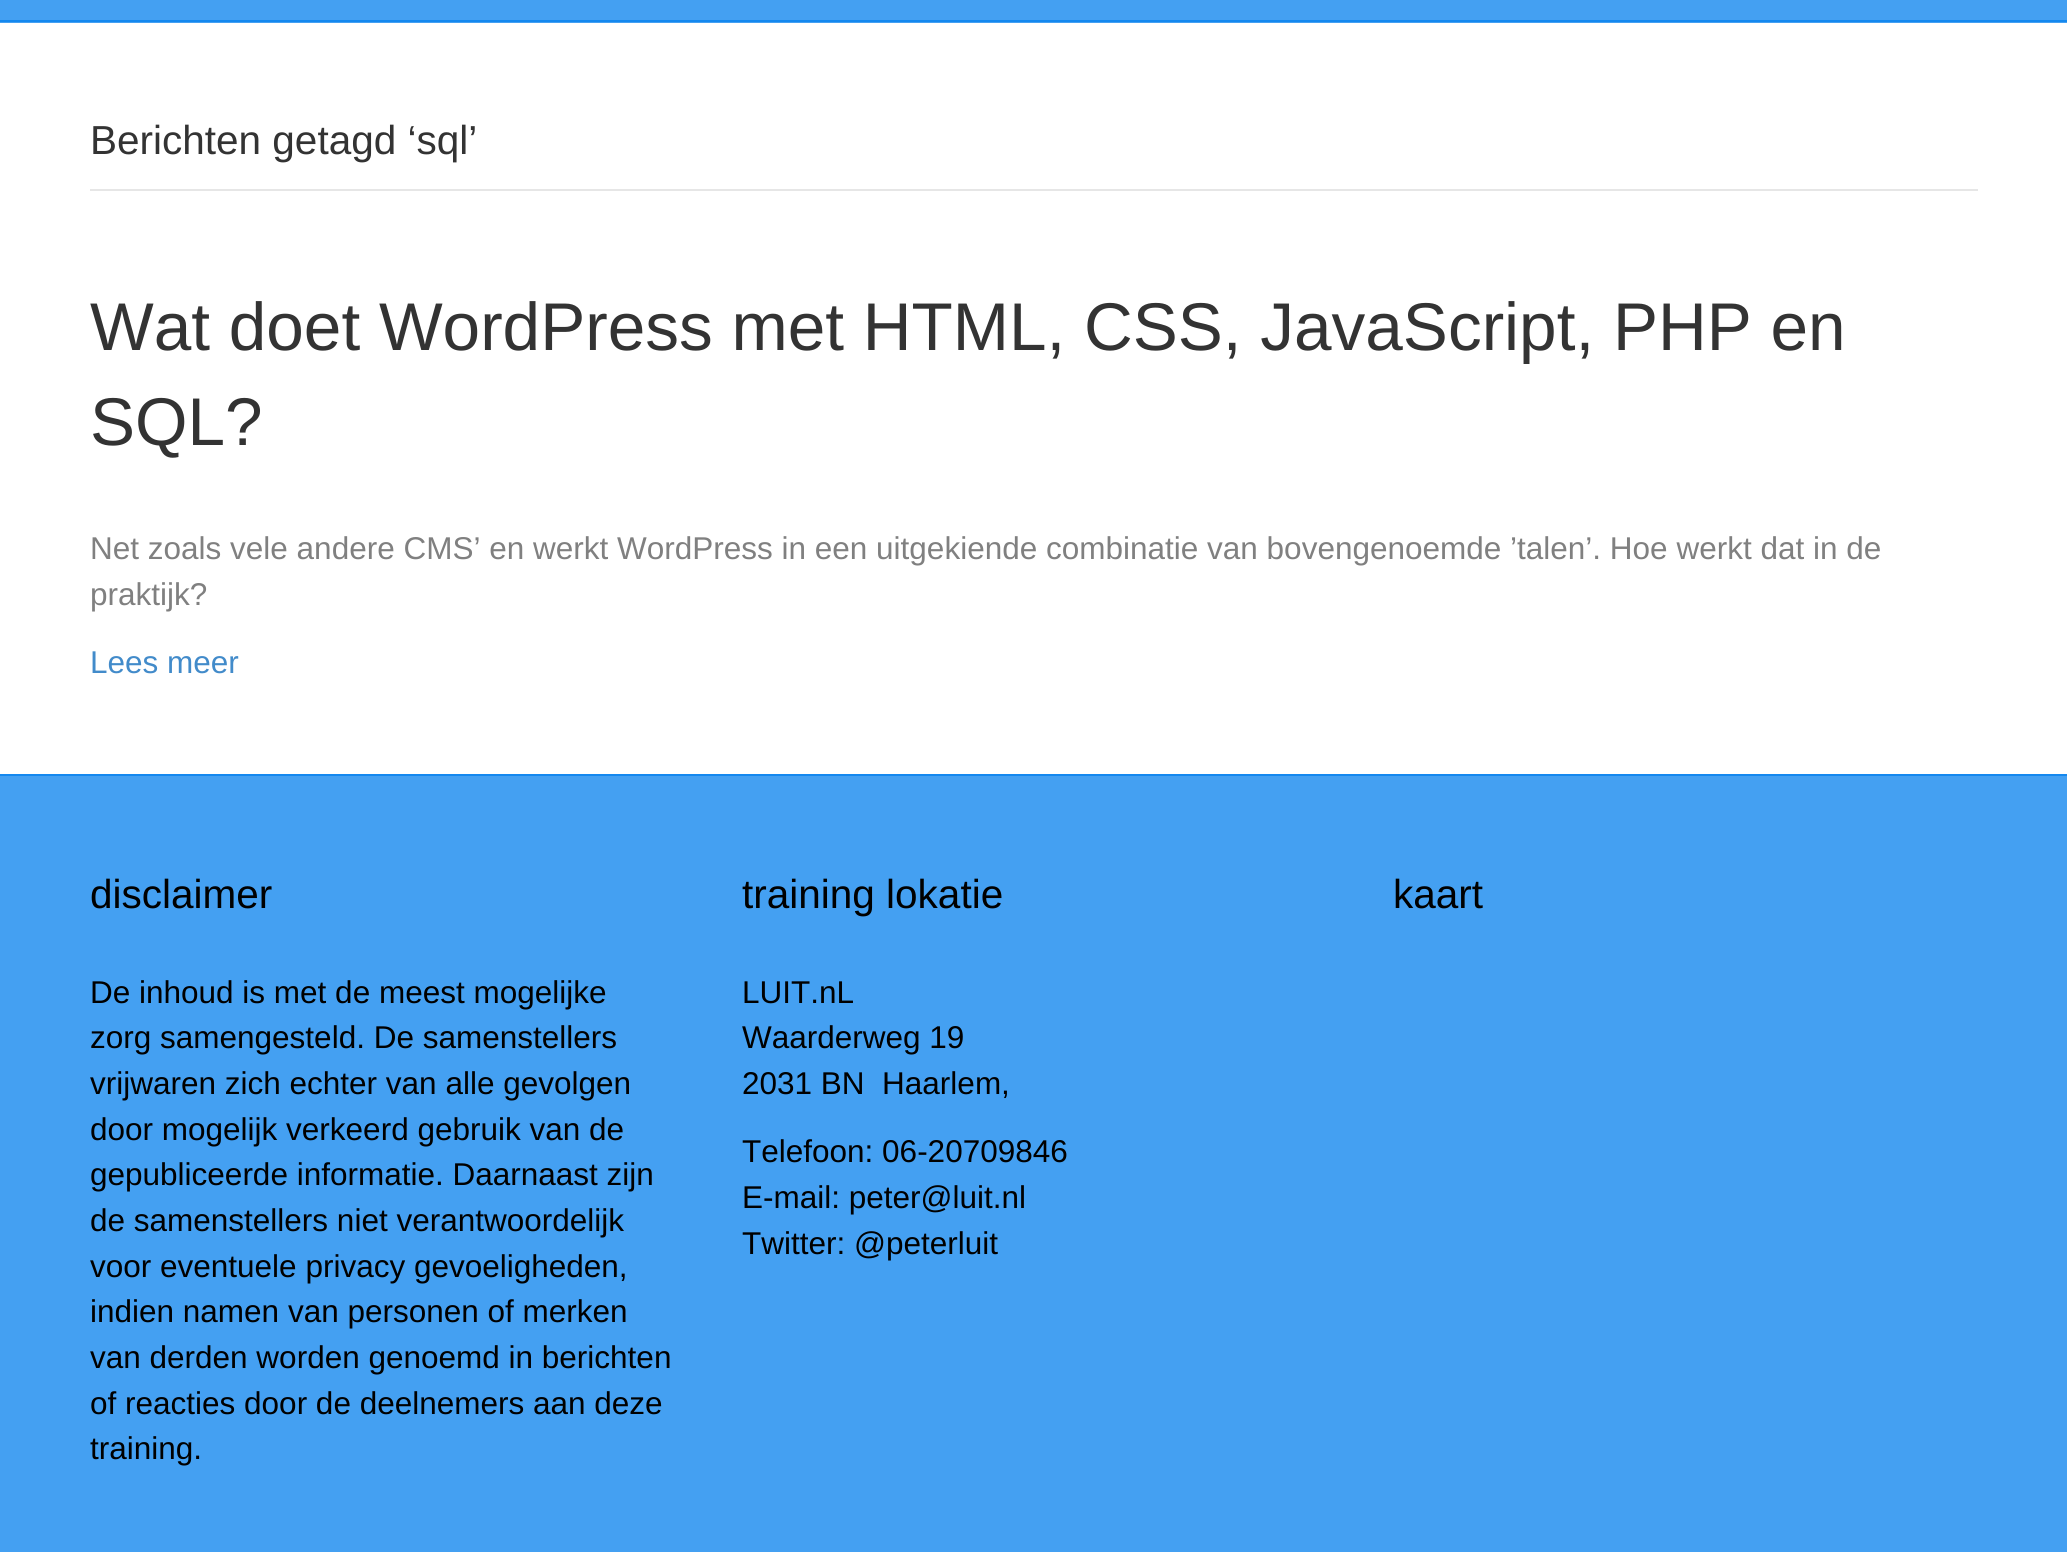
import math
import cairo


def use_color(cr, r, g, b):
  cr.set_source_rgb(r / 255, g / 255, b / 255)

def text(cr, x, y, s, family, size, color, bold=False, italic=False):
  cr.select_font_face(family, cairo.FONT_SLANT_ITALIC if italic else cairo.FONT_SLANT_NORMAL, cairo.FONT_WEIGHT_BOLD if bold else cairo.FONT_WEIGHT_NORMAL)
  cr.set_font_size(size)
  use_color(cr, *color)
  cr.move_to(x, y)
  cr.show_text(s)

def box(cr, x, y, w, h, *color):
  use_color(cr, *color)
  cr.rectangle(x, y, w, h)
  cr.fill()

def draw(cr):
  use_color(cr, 255, 255, 255)
  cr.paint()
  box(cr, 0, 0, 2067, 23, 68, 160, 242)
  box(cr, 0, 20, 2067, 2, 20, 136, 239)
  box(cr, 90, 189, 1888, 2, 230, 230, 230)
  box(cr, 0, 776, 2067, 776, 68, 160, 242)
  box(cr, 0, 774, 2067, 2, 20, 136, 239)
  text(cr, 90, 154, "Berichten getagd ‘sql’", "Liberation Sans", 40.5, (51, 51, 51))
  text(cr, 90, 350, "Wat doet WordPress met HTML, CSS, JavaScript, PHP en", "Liberation Sans", 67.5, (51, 51, 51))
  text(cr, 90, 445, "SQL?", "Liberation Sans", 67.5, (51, 51, 51))
  text(cr, 90, 559, "Net zoals vele andere CMS’ en werkt WordPress in een uitgekiende combinatie van bovengenoemde ’talen’. Hoe werkt dat in de", "Liberation Sans", 31.5, (128, 128, 128))
  text(cr, 90, 605, "praktijk?", "Liberation Sans", 31.5, (128, 128, 128))
  text(cr, 90, 673, "Lees meer", "Liberation Sans", 31.5, (66, 139, 202))
  text(cr, 90, 908, "disclaimer", "Liberation Sans", 40.5, (0, 0, 0))
  text(cr, 90, 1003, "De inhoud is met de meest mogelijke", "Liberation Sans", 31.5, (0, 0, 0))
  text(cr, 90, 1048, "zorg samengesteld. De samenstellers", "Liberation Sans", 31.5, (0, 0, 0))
  text(cr, 90, 1094, "vrijwaren zich echter van alle gevolgen", "Liberation Sans", 31.5, (0, 0, 0))
  text(cr, 90, 1140, "door mogelijk verkeerd gebruik van de", "Liberation Sans", 31.5, (0, 0, 0))
  text(cr, 90, 1185, "gepubliceerde informatie. Daarnaast zijn", "Liberation Sans", 31.5, (0, 0, 0))
  text(cr, 90, 1231, "de samenstellers niet verantwoordelijk", "Liberation Sans", 31.5, (0, 0, 0))
  text(cr, 90, 1277, "voor eventuele privacy gevoeligheden,", "Liberation Sans", 31.5, (0, 0, 0))
  text(cr, 90, 1322, "indien namen van personen of merken", "Liberation Sans", 31.5, (0, 0, 0))
  text(cr, 90, 1368, "van derden worden genoemd in berichten", "Liberation Sans", 31.5, (0, 0, 0))
  text(cr, 90, 1414, "of reacties door de deelnemers aan deze", "Liberation Sans", 31.5, (0, 0, 0))
  text(cr, 90, 1459, "training.", "Liberation Sans", 31.5, (0, 0, 0))
  text(cr, 742, 908, "training lokatie", "Liberation Sans", 40.5, (0, 0, 0))
  text(cr, 742, 1003, "LUIT.nL", "Liberation Sans", 31.5, (0, 0, 0))
  text(cr, 742, 1048, "Waarderweg 19", "Liberation Sans", 31.5, (0, 0, 0))
  text(cr, 742, 1094, "2031 BN  Haarlem,", "Liberation Sans", 31.5, (0, 0, 0))
  text(cr, 742, 1162, "Telefoon: 06-20709846", "Liberation Sans", 31.5, (0, 0, 0))
  text(cr, 742, 1208, "E-mail: peter@luit.nl", "Liberation Sans", 31.5, (0, 0, 0))
  text(cr, 742, 1254, "Twitter: @peterluit", "Liberation Sans", 31.5, (0, 0, 0))
  text(cr, 1393, 908, "kaart", "Liberation Sans", 40.5, (0, 0, 0))


surface = cairo.ImageSurface(cairo.FORMAT_RGB24, 2067, 1552)
cr = cairo.Context(surface)
options = cairo.FontOptions()
options.set_hint_metrics(cairo.HINT_METRICS_OFF)
options.set_hint_style(cairo.HINT_STYLE_NONE)
cr.set_font_options(options)
cr.set_miter_limit(4)
draw(cr)
surface.write_to_png("out.png")
